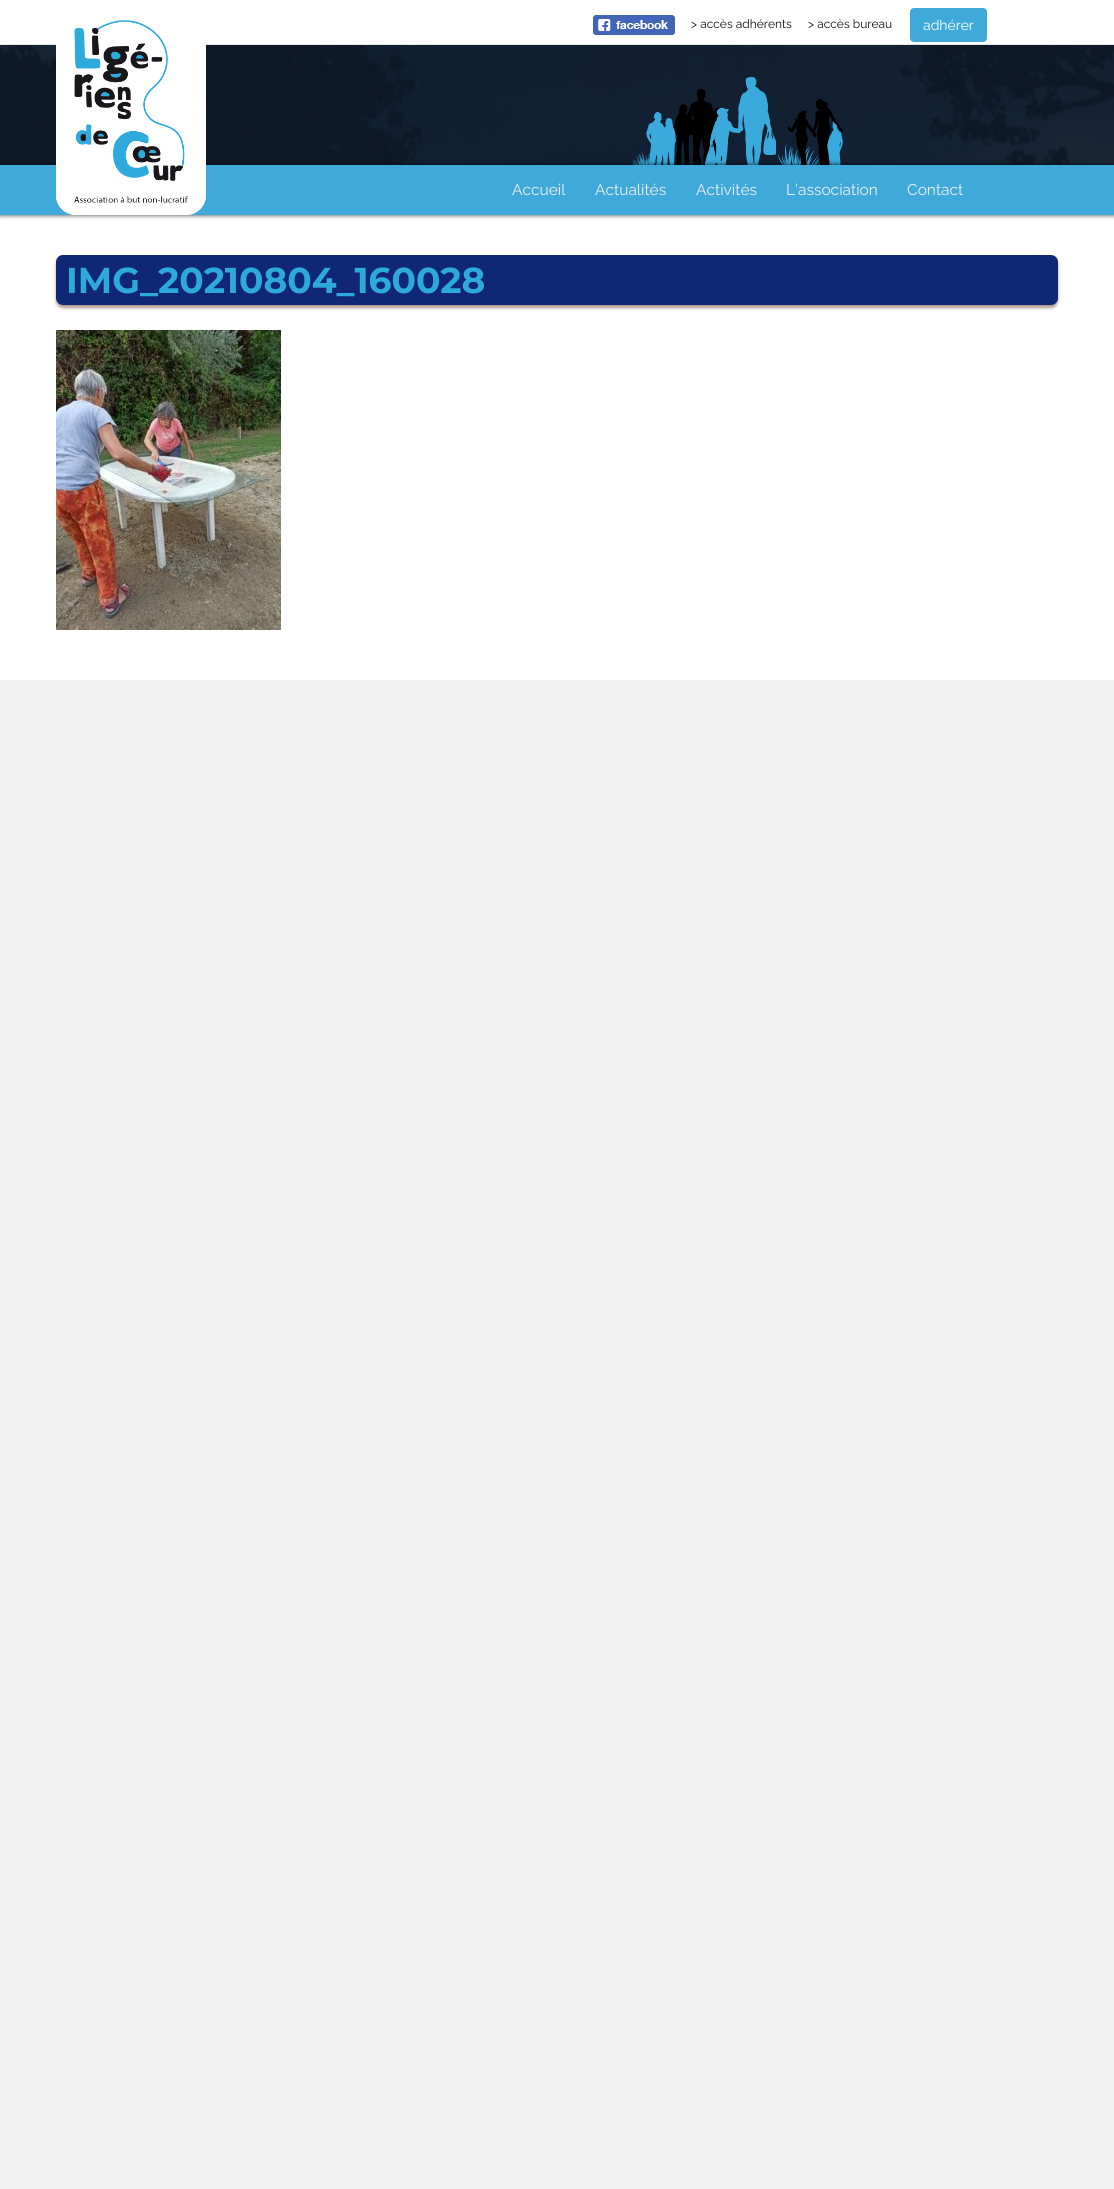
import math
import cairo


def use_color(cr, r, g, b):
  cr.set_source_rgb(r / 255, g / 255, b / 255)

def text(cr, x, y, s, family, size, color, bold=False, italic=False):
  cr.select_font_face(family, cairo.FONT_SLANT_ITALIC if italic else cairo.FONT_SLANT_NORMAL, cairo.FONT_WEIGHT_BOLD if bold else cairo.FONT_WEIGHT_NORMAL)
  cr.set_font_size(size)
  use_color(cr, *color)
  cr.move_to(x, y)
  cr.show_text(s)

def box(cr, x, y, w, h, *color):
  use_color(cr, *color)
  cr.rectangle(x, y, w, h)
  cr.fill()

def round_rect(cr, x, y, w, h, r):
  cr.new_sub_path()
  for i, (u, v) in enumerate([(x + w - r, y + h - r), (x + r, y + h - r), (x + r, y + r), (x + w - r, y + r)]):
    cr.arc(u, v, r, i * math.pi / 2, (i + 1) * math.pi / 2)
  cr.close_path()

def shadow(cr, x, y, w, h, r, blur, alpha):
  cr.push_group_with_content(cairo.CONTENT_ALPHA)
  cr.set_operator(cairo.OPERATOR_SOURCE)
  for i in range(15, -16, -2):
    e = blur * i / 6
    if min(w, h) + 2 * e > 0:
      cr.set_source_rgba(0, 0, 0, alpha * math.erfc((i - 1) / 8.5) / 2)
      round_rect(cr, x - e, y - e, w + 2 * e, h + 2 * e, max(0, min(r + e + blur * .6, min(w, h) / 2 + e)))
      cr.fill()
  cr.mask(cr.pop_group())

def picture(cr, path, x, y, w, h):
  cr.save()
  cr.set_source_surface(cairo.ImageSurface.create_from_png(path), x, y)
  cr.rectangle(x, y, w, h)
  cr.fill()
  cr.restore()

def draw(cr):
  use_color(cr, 242, 242, 242)
  cr.paint()
  box(cr, 0, 0, 1114, 44, 255, 255, 255)
  box(cr, 0, 44, 1114, 1, 230, 230, 230)
  picture(cr, "img_01.png", 593, 15, 82, 20)
  use_color(cr, 63, 169, 218)
  round_rect(cr, 910, 8, 77, 34, 4)
  cr.fill()
  picture(cr, "img_02.png", 0, 45, 1114, 120)
  cr.set_source_rgba(0.02, 0.086, 0.169, 0.69)
  cr.rectangle(0, 45, 1114, 120)
  cr.fill()
  box(cr, 0, 165, 1114, 50, 63, 169, 218)
  picture(cr, "img_04.png", 631, 77, 212, 88)
  box(cr, 0, 215, 1114, 465, 255, 255, 255)
  cr.save()
  cr.set_fill_rule(cairo.FILL_RULE_EVEN_ODD)
  cr.new_path()
  cr.move_to(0, 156)
  cr.line_to(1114, 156)
  cr.line_to(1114, 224)
  cr.line_to(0, 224)
  cr.close_path()
  cr.move_to(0, 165)
  cr.line_to(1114, 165)
  cr.line_to(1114, 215)
  cr.line_to(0, 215)
  cr.close_path()
  cr.clip()
  use_color(cr, 0, 0, 0)
  shadow(cr, 0, 165, 1114, 50, 0, 2.5, 0.78)
  cr.restore()
  cr.new_path()
  cr.move_to(56, 10)
  cr.line_to(206, 10)
  cr.line_to(206, 195)
  cr.curve_to(206, 206, 197, 215, 186, 215)
  cr.line_to(76, 215)
  cr.curve_to(65, 215, 56, 206, 56, 195)
  cr.close_path()
  cr.fill()
  picture(cr, "img_03.png", 74, 20, 114, 183)
  cr.new_path()
  cr.move_to(61, 15)
  cr.line_to(201, 15)
  cr.line_to(201, 195)
  cr.curve_to(201, 203.5, 194.5, 210, 186, 210)
  cr.line_to(76, 210)
  cr.curve_to(67.5, 210, 61, 203.5, 61, 195)
  cr.close_path()
  cr.set_line_width(10)
  cr.stroke()
  use_color(cr, 83, 31, 7)
  shadow(cr, 56, 258, 1002, 50, 7, 1.5, 0.45)
  use_color(cr, 15, 39, 116)
  round_rect(cr, 56, 255, 1002, 50, 7)
  cr.fill()
  picture(cr, "img_05.png", 56, 330, 225, 300)
  text(cr, 691, 28, "> accès adhérents", "Raleway Thin", 12, (17, 17, 17))
  text(cr, 808, 28, "> accès bureau", "Raleway Thin", 12, (17, 17, 17))
  text(cr, 923, 30, "adhérer", "Raleway Thin", 14, (255, 255, 255))
  text(cr, 512, 195, "Accueil", "Raleway Thin", 15.5, (238, 238, 238))
  text(cr, 595, 195, "Actualités", "Raleway Thin", 15.5, (238, 238, 238))
  text(cr, 696, 195, "Activités", "Raleway Thin", 15.5, (238, 238, 238))
  text(cr, 786, 195, "L’association", "Raleway Thin", 15.5, (238, 238, 238))
  text(cr, 907, 195, "Contact", "Raleway Thin", 15.5, (238, 238, 238))
  text(cr, 66, 293, "IMG_20210804_160028", "Montserrat Thin", 36, (45, 169, 219))


surface = cairo.ImageSurface(cairo.FORMAT_RGB24, 1114, 2189)
cr = cairo.Context(surface)
options = cairo.FontOptions()
options.set_hint_metrics(cairo.HINT_METRICS_OFF)
options.set_hint_style(cairo.HINT_STYLE_NONE)
cr.set_font_options(options)
cr.set_miter_limit(4)
draw(cr)
surface.write_to_png("out.png")
